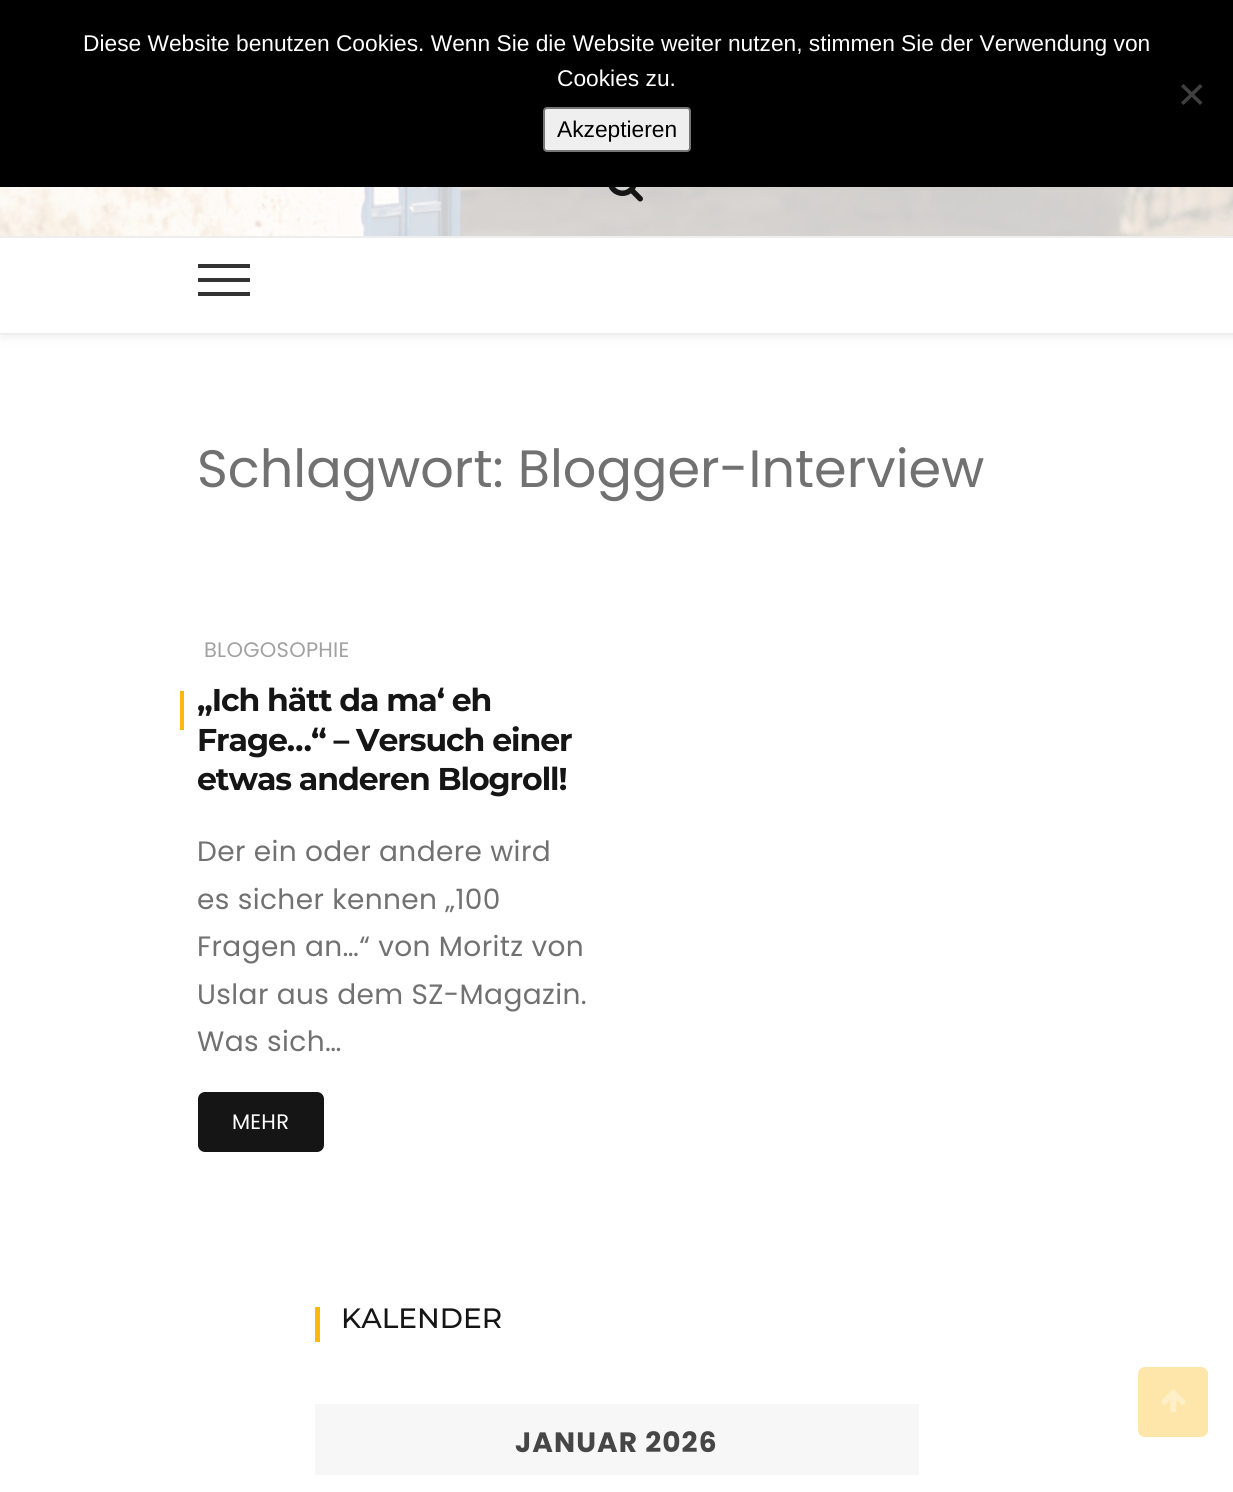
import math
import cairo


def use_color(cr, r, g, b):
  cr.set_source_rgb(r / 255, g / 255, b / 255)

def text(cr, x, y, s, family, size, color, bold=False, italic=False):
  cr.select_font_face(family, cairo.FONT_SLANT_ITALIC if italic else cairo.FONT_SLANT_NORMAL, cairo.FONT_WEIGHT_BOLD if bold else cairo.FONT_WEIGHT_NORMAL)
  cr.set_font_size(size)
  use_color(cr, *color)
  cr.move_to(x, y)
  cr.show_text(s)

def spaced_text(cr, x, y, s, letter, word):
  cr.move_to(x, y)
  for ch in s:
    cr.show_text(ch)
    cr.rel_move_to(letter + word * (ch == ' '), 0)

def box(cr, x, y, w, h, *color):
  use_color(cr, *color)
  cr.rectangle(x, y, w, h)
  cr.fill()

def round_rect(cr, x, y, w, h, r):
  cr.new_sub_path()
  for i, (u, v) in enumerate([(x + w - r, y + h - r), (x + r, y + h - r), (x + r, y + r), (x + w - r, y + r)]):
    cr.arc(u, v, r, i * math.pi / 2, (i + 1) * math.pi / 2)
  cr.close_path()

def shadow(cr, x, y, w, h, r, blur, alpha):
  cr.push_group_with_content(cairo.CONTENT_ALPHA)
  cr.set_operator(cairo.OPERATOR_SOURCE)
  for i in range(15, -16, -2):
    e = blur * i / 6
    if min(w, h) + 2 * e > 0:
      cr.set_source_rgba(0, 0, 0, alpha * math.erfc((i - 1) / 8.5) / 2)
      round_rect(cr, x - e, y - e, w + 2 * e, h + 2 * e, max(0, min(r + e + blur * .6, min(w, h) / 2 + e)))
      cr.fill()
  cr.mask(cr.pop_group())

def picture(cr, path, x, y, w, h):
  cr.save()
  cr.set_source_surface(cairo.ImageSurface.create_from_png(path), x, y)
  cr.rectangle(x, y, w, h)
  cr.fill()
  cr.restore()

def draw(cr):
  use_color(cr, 255, 255, 255)
  cr.paint()
  use_color(cr, 235, 235, 235)
  shadow(cr, 2, -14, 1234, 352, 0, 4.5, 0.75)
  picture(cr, "img_01.png", 0, 187, 1233, 49)
  box(cr, 0, 333, 1233, 2, 238, 238, 238)
  cr.set_source_rgba(1, 1, 1, 0.8)
  cr.rectangle(0, 187, 1233, 49)
  cr.fill()
  picture(cr, "img_02.png", 608, 187, 35, 15)
  box(cr, 0, 238, 1233, 95, 255, 255, 255)
  box(cr, 0, 236, 1233, 2, 238, 238, 238)
  box(cr, 198, 264, 52, 4, 51, 51, 51)
  box(cr, 198, 278, 52, 4, 51, 51, 51)
  box(cr, 198, 292, 52, 4, 51, 51, 51)
  box(cr, 0, 0, 1233, 187, 0, 0, 0)
  use_color(cr, 64, 64, 64)
  cr.new_path()
  cr.move_to(1200, 84)
  cr.line_to(1202.5, 86.5)
  cr.line_to(1183.5, 105)
  cr.line_to(1181, 102.5)
  cr.close_path()
  cr.fill()
  cr.new_path()
  cr.move_to(1181, 86.5)
  cr.line_to(1183.5, 84)
  cr.line_to(1202.5, 102.5)
  cr.line_to(1200, 105)
  cr.close_path()
  cr.fill()
  use_color(cr, 239, 239, 239)
  round_rect(cr, 544, 108, 146, 43, 3)
  cr.fill_preserve()
  use_color(cr, 118, 118, 118)
  cr.stroke()
  box(cr, 180, 691, 4, 39, 252, 184, 17)
  use_color(cr, 21, 21, 21)
  round_rect(cr, 198, 1092, 126, 60, 7)
  cr.fill()
  box(cr, 315, 1307, 5, 35, 252, 184, 17)
  box(cr, 315, 1404, 604, 71, 247, 247, 247)
  use_color(cr, 254, 230, 171)
  round_rect(cr, 1138, 1367, 70, 70, 7)
  cr.fill()
  picture(cr, "img_03.png", 1161, 1389, 25, 24)
  text(cr, 83, 51, "Diese Website benutzen Cookies. Wenn Sie die Website weiter nutzen, stimmen Sie der Verwendung von", "Liberation Sans", 22.75, (255, 255, 255))
  text(cr, 557, 86, "Cookies zu.", "Liberation Sans", 22.75, (255, 255, 255))
  text(cr, 557, 137, "Akzeptieren", "Liberation Sans", 22.75, (0, 0, 0))
  text(cr, 197, 487, "Schlagwort: Blogger-Interview", "Poppins", 52.5, (113, 113, 113))
  cr.set_font_size(21)
  use_color(cr, 161, 161, 161)
  spaced_text(cr, 204, 657, "BLOGOSOPHIE", 0.25, 0)
  cr.select_font_face("Montserrat", cairo.FONT_SLANT_NORMAL, cairo.FONT_WEIGHT_BOLD)
  cr.set_font_size(31.5)
  use_color(cr, 21, 21, 21)
  spaced_text(cr, 197, 711, "„Ich hätt da ma‘ eh", -1.05, 0)
  spaced_text(cr, 197, 751, "Frage…“ – Versuch einer", -1.05, 0)
  spaced_text(cr, 197, 790, "etwas anderen Blogroll!", -1.05, 0)
  cr.select_font_face("Poppins")
  cr.set_font_size(28)
  use_color(cr, 113, 113, 113)
  spaced_text(cr, 197, 861, "Der ein oder andere wird", 0.4, 0)
  spaced_text(cr, 197, 909, "es sicher kennen „100", 0.4, 0)
  spaced_text(cr, 197, 956, "Fragen an…“ von Moritz von", 0.4, 0)
  spaced_text(cr, 197, 1004, "Uslar aus dem SZ-Magazin.", 0.4, 0)
  spaced_text(cr, 197, 1051, "Was sich…", 0.4, 0)
  cr.set_font_size(21)
  use_color(cr, 255, 255, 255)
  spaced_text(cr, 232, 1129, "MEHR", 0.25, 0)
  text(cr, 341, 1328, "KALENDER", "Montserrat Medium", 28, (21, 21, 21))
  cr.select_font_face("Poppins", cairo.FONT_SLANT_NORMAL, cairo.FONT_WEIGHT_BOLD)
  use_color(cr, 70, 70, 70)
  spaced_text(cr, 515, 1452, "JANUAR 2026", 1.1, 0)


surface = cairo.ImageSurface(cairo.FORMAT_RGB24, 1233, 1492)
cr = cairo.Context(surface)
options = cairo.FontOptions()
options.set_hint_metrics(cairo.HINT_METRICS_OFF)
options.set_hint_style(cairo.HINT_STYLE_NONE)
cr.set_font_options(options)
cr.set_miter_limit(4)
draw(cr)
surface.write_to_png("out.png")
